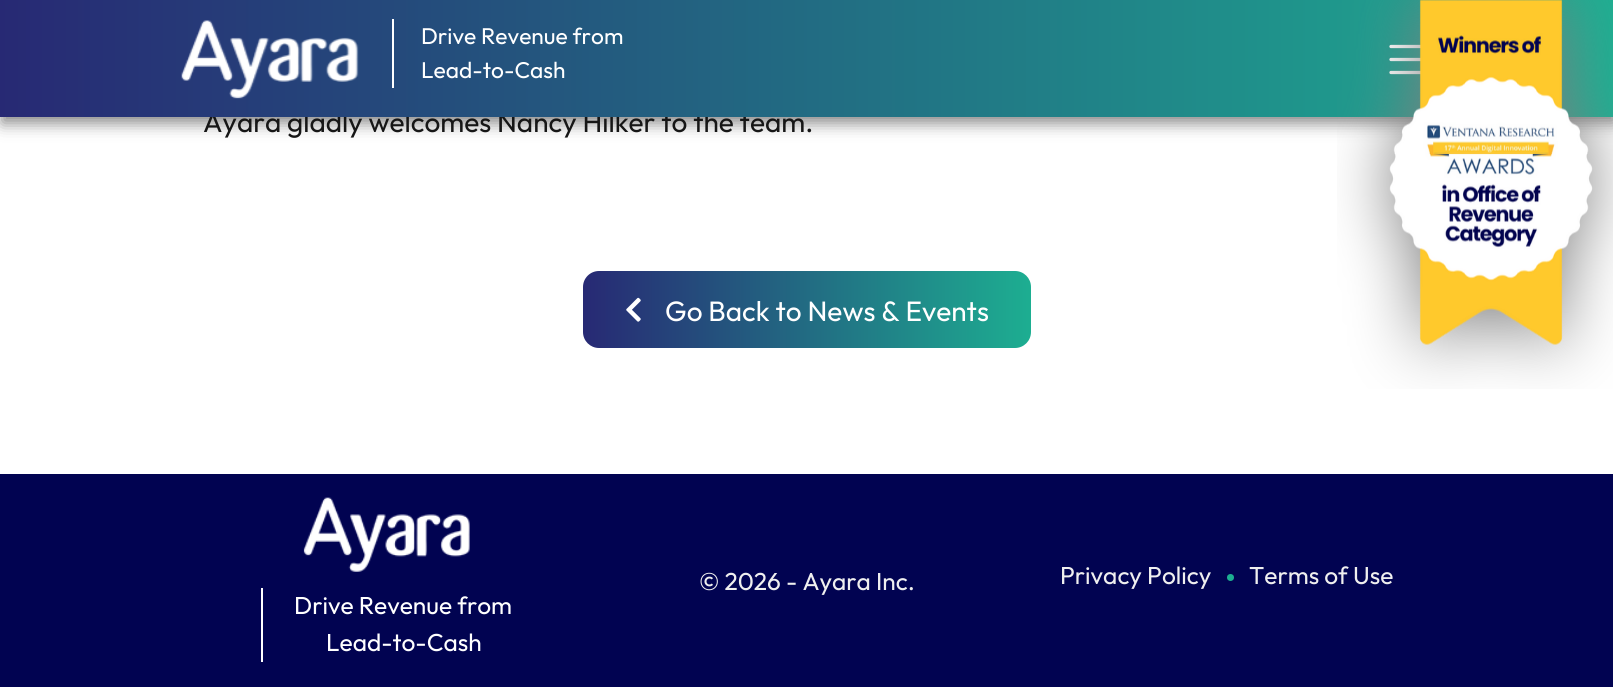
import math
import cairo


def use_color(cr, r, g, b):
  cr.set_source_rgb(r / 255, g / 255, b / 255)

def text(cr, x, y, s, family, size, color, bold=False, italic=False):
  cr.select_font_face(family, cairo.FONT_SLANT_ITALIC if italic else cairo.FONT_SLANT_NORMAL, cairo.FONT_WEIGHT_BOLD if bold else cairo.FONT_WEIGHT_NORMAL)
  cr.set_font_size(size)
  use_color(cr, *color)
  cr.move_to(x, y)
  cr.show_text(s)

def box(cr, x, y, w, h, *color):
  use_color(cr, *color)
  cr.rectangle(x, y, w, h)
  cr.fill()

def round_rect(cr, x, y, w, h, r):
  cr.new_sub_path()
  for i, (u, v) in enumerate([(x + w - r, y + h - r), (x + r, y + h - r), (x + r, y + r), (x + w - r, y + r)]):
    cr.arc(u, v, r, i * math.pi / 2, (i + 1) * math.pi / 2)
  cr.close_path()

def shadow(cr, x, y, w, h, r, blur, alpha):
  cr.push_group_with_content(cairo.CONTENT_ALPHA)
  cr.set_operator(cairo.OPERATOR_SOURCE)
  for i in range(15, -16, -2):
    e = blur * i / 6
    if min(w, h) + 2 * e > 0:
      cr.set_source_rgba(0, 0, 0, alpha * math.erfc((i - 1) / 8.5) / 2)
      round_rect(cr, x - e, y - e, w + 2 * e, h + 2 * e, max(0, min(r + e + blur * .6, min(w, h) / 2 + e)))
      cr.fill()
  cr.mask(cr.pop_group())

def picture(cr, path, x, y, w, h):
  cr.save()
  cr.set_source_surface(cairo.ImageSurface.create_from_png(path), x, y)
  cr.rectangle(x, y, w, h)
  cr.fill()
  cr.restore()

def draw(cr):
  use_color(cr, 255, 255, 255)
  cr.paint()
  use_color(cr, 44, 44, 44)
  shadow(cr, 2, 5, 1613, 118, 0, 8, 0.58)
  gradient = cairo.LinearGradient(583, 310, 1031, 310)
  gradient.add_color_stop_rgba(0, 0.153, 0.161, 0.455, 1)
  gradient.add_color_stop_rgba(1, 0.114, 0.682, 0.569, 1)
  cr.set_source(gradient)
  round_rect(cr, 583, 271, 448, 77, 16)
  cr.fill()
  picture(cr, "img_03.png", 626, 297, 15, 25)
  box(cr, 0, 474, 1613, 213, 1, 3, 81)
  use_color(cr, 29, 174, 145)
  cr.arc(1230.5, 577.5, 3.5, 0, 2 * math.pi)
  cr.fill()
  picture(cr, "img_04.png", 303, 497, 167, 75)
  box(cr, 261, 588, 2, 74, 255, 255, 255)
  text(cr, 203, 132, "Ayara gladly welcomes Nancy Hilker to the team.", "Outfit", 28, (22, 22, 22))
  gradient = cairo.LinearGradient(0, 59, 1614, 59)
  gradient.add_color_stop_rgba(0, 0.153, 0.161, 0.455, 1)
  gradient.add_color_stop_rgba(1, 0.114, 0.682, 0.569, 1)
  cr.set_source(gradient)
  cr.rectangle(0, 0, 1613, 117)
  cr.fill()
  cr.new_path()
  cr.move_to(1391, 46.5)
  cr.line_to(1430, 46.5)
  cr.move_to(1391, 59.5)
  cr.line_to(1430, 59.5)
  cr.move_to(1391, 72.5)
  cr.line_to(1430, 72.5)
  use_color(cr, 255, 255, 255)
  cr.set_line_width(3.3)
  cr.set_line_cap(cairo.LINE_CAP_ROUND)
  cr.stroke()
  picture(cr, "img_02.png", 1337, 0, 276, 389)
  text(cr, 421, 78, "Lead-to-Cash", "Outfit", 22.75, (255, 255, 255))
  text(cr, 421, 44, "Drive Revenue from", "Outfit", 22.75, (255, 255, 255))
  box(cr, 392, 19, 2, 69, 255, 255, 255)
  picture(cr, "img_01.png", 181, 20, 178, 79)
  text(cr, 665, 321, "Go Back to News & Events", "Outfit", 28, (255, 255, 255))
  text(cr, 699, 590, "© 2026 - Ayara Inc.", "Outfit", 24.5, (239, 239, 239))
  text(cr, 1060, 584, "Privacy Policy", "Outfit", 24.5, (239, 239, 239))
  text(cr, 1249, 584, "Terms of Use", "Outfit", 24.5, (239, 239, 239))
  text(cr, 294, 614, "Drive Revenue from", "Outfit", 24.5, (255, 255, 255))
  text(cr, 326, 651, "Lead-to-Cash", "Outfit", 24.5, (255, 255, 255))


surface = cairo.ImageSurface(cairo.FORMAT_RGB24, 1613, 687)
cr = cairo.Context(surface)
options = cairo.FontOptions()
options.set_hint_metrics(cairo.HINT_METRICS_OFF)
options.set_hint_style(cairo.HINT_STYLE_NONE)
cr.set_font_options(options)
cr.set_miter_limit(4)
draw(cr)
surface.write_to_png("out.png")
